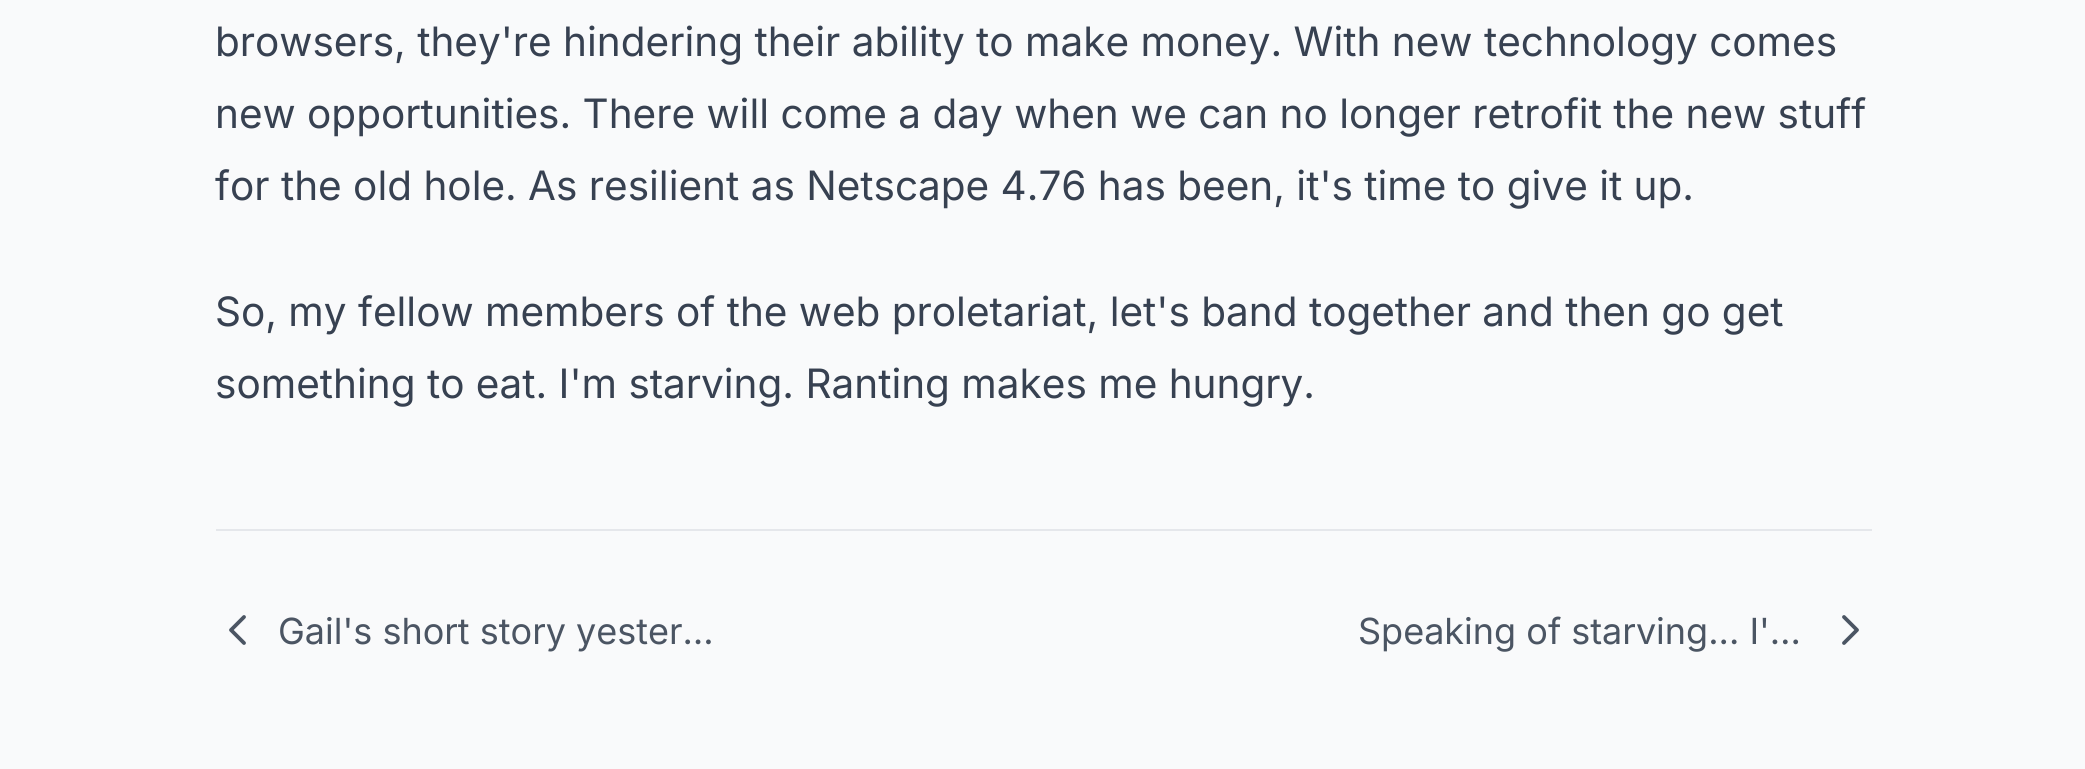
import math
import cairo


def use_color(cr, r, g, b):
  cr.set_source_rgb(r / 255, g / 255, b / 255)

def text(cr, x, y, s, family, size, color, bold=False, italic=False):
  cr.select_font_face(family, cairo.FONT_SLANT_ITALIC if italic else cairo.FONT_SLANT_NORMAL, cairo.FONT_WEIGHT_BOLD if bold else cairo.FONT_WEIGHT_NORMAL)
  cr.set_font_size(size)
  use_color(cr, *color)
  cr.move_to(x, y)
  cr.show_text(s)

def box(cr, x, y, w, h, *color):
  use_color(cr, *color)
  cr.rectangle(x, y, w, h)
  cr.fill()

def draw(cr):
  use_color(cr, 249, 250, 251)
  cr.paint()
  box(cr, 216, 529, 1656, 2, 229, 231, 235)
  cr.new_path()
  cr.move_to(244, 643)
  cr.line_to(231, 630)
  cr.line_to(244, 617)
  use_color(cr, 75, 85, 99)
  cr.set_line_width(3.8)
  cr.set_line_cap(cairo.LINE_CAP_ROUND)
  cr.set_line_join(cairo.LINE_JOIN_ROUND)
  cr.stroke()
  cr.new_path()
  cr.move_to(1844, 617)
  cr.line_to(1857, 630)
  cr.line_to(1844, 643)
  cr.stroke()
  text(cr, 215, 56, "browsers, they're hindering their ability to make money. With new technology comes", "Inter", 40.5, (55, 65, 81))
  text(cr, 215, 128, "new opportunities. There will come a day when we can no longer retrofit the new stuff", "Inter", 40.5, (55, 65, 81))
  text(cr, 215, 200, "for the old hole. As resilient as Netscape 4.76 has been, it's time to give it up.", "Inter", 40.5, (55, 65, 81))
  text(cr, 215, 326, "So, my fellow members of the web proletariat, let's band together and then go get", "Inter", 40.5, (55, 65, 81))
  text(cr, 215, 398, "something to eat. I'm starving. Ranting makes me hungry.", "Inter", 40.5, (55, 65, 81))
  text(cr, 278, 644, "Gail's short story yester…", "Inter", 36, (75, 85, 99))
  text(cr, 1358, 644, "Speaking of starving... I'…", "Inter", 36, (75, 85, 99))


surface = cairo.ImageSurface(cairo.FORMAT_RGB24, 2085, 769)
cr = cairo.Context(surface)
options = cairo.FontOptions()
options.set_hint_metrics(cairo.HINT_METRICS_OFF)
options.set_hint_style(cairo.HINT_STYLE_NONE)
cr.set_font_options(options)
cr.set_miter_limit(4)
draw(cr)
surface.write_to_png("out.png")
